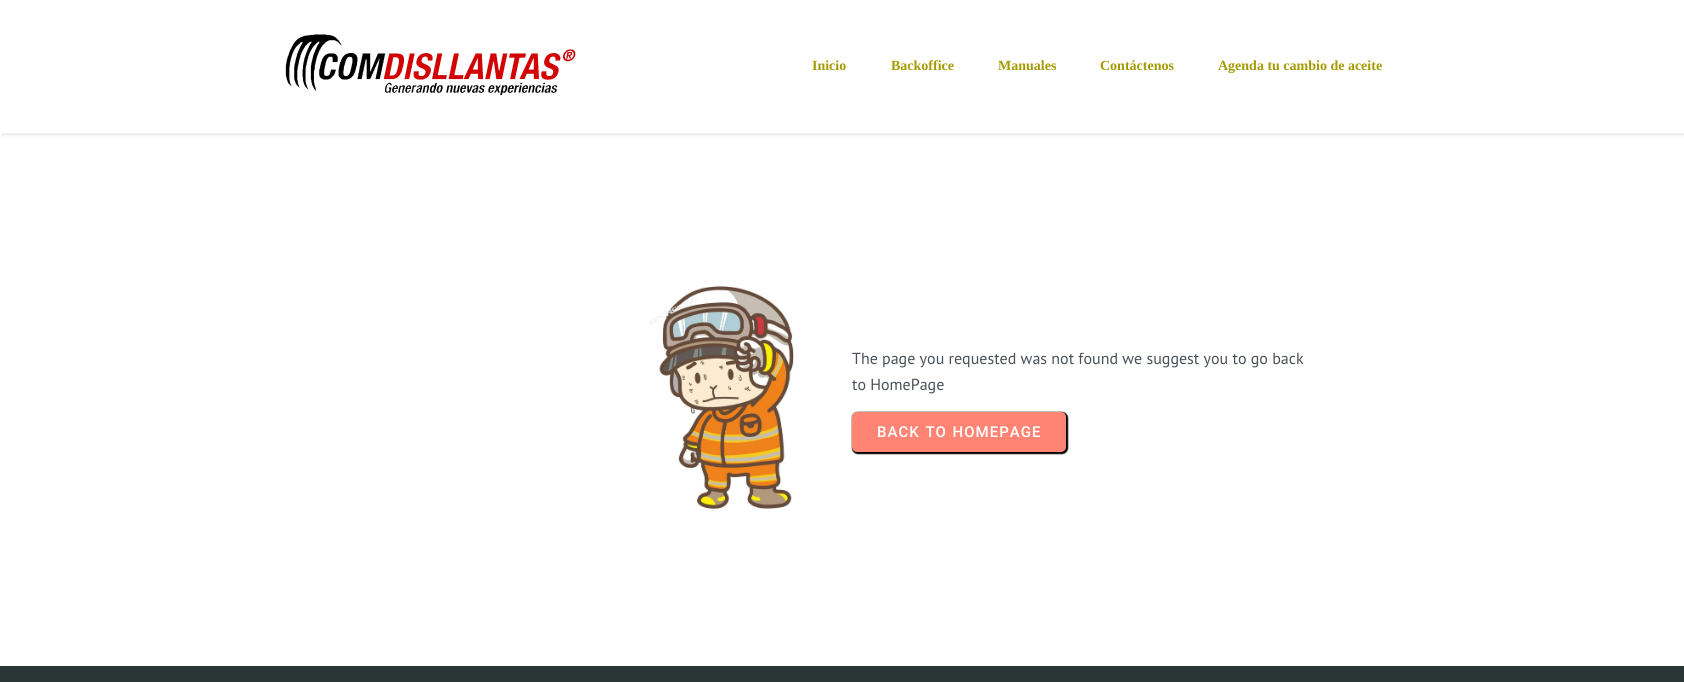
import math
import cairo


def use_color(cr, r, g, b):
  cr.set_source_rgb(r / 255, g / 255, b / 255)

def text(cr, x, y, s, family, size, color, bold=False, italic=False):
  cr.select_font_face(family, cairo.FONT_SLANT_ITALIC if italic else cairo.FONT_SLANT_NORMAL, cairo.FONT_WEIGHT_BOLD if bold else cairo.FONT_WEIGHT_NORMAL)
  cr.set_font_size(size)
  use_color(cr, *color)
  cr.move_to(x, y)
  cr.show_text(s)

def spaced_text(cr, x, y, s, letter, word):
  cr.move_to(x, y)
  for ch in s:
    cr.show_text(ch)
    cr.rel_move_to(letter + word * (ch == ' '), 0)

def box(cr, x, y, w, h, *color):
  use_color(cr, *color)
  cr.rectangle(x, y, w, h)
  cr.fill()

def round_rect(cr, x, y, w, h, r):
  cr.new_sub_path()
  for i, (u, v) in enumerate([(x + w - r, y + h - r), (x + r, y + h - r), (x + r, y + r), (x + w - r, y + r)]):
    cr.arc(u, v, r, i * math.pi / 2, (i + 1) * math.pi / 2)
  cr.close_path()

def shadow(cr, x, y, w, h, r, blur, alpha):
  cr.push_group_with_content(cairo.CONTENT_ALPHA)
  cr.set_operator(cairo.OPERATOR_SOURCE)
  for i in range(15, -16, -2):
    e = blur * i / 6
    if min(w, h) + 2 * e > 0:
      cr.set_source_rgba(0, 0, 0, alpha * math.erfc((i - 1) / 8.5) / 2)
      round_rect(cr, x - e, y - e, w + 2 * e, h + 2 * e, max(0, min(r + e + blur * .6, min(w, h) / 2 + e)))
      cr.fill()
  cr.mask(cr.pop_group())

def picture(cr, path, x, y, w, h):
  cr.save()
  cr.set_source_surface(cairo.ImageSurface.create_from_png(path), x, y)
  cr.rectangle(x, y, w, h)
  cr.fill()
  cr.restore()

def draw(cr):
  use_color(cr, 255, 255, 255)
  cr.paint()
  cr.save()
  cr.rectangle(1, 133, 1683, 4)
  cr.clip()
  use_color(cr, 0, 0, 0)
  shadow(cr, 2, 2, 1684, 133, 0, 2.5, 0.1)
  cr.restore()
  picture(cr, "img_01.png", 285, 34, 291, 61)
  picture(cr, "img_02.png", 649, 285, 146, 224)
  use_color(cr, 0, 0, 0)
  shadow(cr, 852, 412, 216, 42, 6, 0.5, 1)
  use_color(cr, 255, 132, 116)
  round_rect(cr, 852, 412, 214, 40, 5)
  cr.fill()
  box(cr, 0, 666, 1684, 16, 40, 55, 54)
  text(cr, 812, 70, "Inicio", "Liberation Serif", 14, (165, 154, 0), bold=True)
  text(cr, 891, 70, "Backoffice", "Liberation Serif", 14, (165, 154, 0), bold=True)
  text(cr, 998, 70, "Manuales", "Liberation Serif", 14, (165, 154, 0), bold=True)
  text(cr, 1100, 70, "Contáctenos", "Liberation Serif", 14, (165, 154, 0), bold=True)
  text(cr, 1218, 70, "Agenda tu cambio de aceite", "Liberation Serif", 14, (165, 154, 0), bold=True)
  text(cr, 852, 364, "The page you requested was not found we suggest you to go back", "PT Sans", 16, (73, 80, 87))
  text(cr, 852, 390, "to HomePage", "PT Sans", 16, (73, 80, 87))
  cr.select_font_face("Roboto Medium")
  cr.set_font_size(15)
  use_color(cr, 255, 255, 255)
  spaced_text(cr, 877, 437, "BACK TO HOMEPAGE", 1, 1)


surface = cairo.ImageSurface(cairo.FORMAT_RGB24, 1684, 682)
cr = cairo.Context(surface)
options = cairo.FontOptions()
options.set_hint_metrics(cairo.HINT_METRICS_OFF)
options.set_hint_style(cairo.HINT_STYLE_NONE)
cr.set_font_options(options)
cr.set_miter_limit(4)
draw(cr)
surface.write_to_png("out.png")
